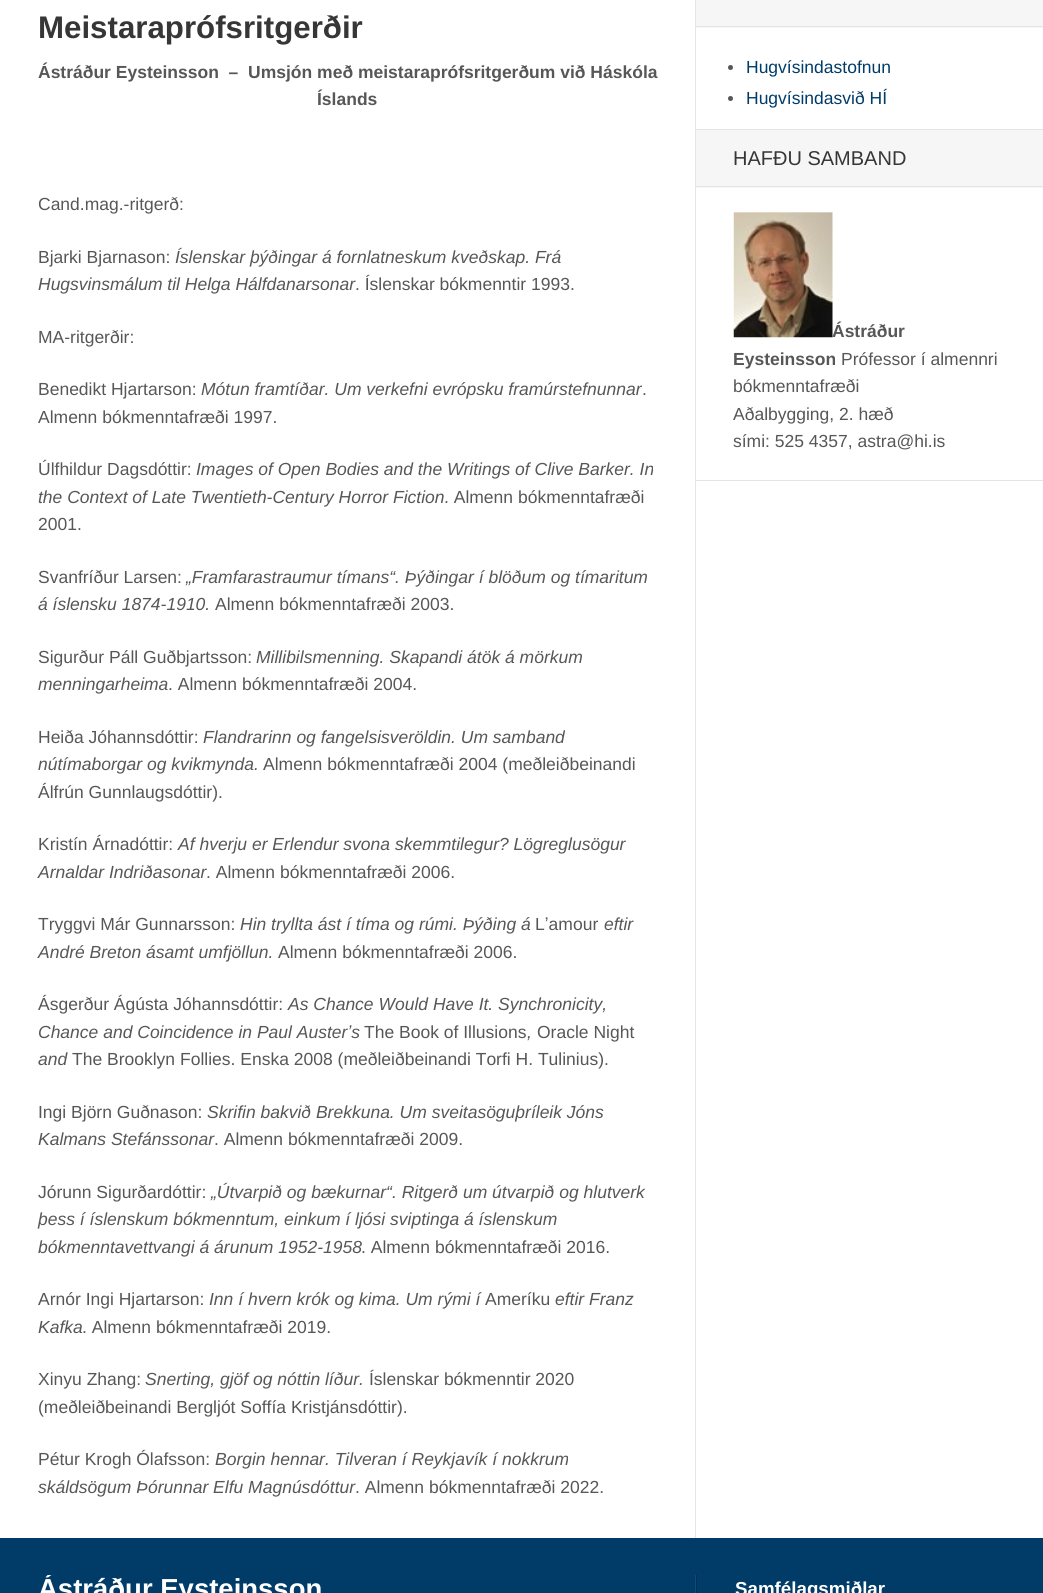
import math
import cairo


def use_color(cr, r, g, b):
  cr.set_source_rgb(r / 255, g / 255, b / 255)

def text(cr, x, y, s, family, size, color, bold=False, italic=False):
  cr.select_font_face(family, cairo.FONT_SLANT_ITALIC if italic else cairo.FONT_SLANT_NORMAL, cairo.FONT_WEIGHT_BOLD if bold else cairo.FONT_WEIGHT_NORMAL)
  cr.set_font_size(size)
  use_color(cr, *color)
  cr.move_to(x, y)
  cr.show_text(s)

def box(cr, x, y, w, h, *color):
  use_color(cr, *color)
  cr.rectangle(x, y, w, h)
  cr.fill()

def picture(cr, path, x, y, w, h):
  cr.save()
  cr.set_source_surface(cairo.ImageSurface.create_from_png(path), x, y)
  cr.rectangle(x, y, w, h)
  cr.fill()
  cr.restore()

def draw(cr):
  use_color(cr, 1, 60, 104)
  cr.paint()
  box(cr, 0, 0, 1043, 1538, 255, 255, 255)
  box(cr, 695, 0, 1, 1538, 229, 229, 229)
  box(cr, 696, 480, 347, 1, 229, 229, 229)
  box(cr, 696, 0, 347, 28, 246, 246, 246)
  box(cr, 696, 26, 347, 1, 229, 229, 229)
  use_color(cr, 87, 87, 87)
  cr.arc(730.5, 67.5, 2.5, 0, 2 * math.pi)
  cr.fill()
  cr.arc(730.5, 98.5, 2.5, 0, 2 * math.pi)
  cr.fill()
  box(cr, 696, 130, 347, 58, 246, 246, 246)
  box(cr, 696, 129, 347, 1, 229, 229, 229)
  box(cr, 696, 186, 347, 1, 229, 229, 229)
  picture(cr, "img_01.png", 733, 212, 100, 126)
  box(cr, 695, 1575, 1, 18, 19, 74, 115)
  box(cr, 696, 1575, 1, 18, 2, 48, 82)
  text(cr, 38, 38, "Meistaraprófsritgerðir", "Liberation Sans", 31.25, (54, 54, 54), bold=True)
  text(cr, 38, 78, "Ástráður Eysteinsson  –  Umsjón með meistaraprófsritgerðum við Háskóla", "Liberation Sans", 17.5, (87, 87, 87), bold=True)
  text(cr, 317, 105, "Íslands", "Liberation Sans", 17.5, (87, 87, 87), bold=True)
  text(cr, 38, 210, "Cand.mag.-ritgerð:", "Liberation Sans", 17.5, (87, 87, 87))
  text(cr, 38, 263, "Bjarki Bjarnason:", "Liberation Sans", 17.5, (87, 87, 87))
  text(cr, 175, 263, "Íslenskar þýðingar á fornlatneskum kveðskap. Frá", "Liberation Sans", 17.5, (87, 87, 87), italic=True)
  text(cr, 38, 290, "Hugsvinsmálum til Helga Hálfdanarsonar", "Liberation Sans", 17.5, (87, 87, 87), italic=True)
  text(cr, 355, 290, ". Íslenskar bókmenntir 1993.", "Liberation Sans", 17.5, (87, 87, 87))
  text(cr, 38, 343, "MA-ritgerðir:", "Liberation Sans", 17.5, (87, 87, 87))
  text(cr, 38, 395, "Benedikt Hjartarson:", "Liberation Sans", 17.5, (87, 87, 87))
  text(cr, 201, 395, "Mótun framtíðar. Um verkefni evrópsku framúrstefnunnar", "Liberation Sans", 17.5, (87, 87, 87), italic=True)
  text(cr, 642, 395, ".", "Liberation Sans", 17.5, (87, 87, 87))
  text(cr, 38, 423, "Almenn bókmenntafræði 1997.", "Liberation Sans", 17.5, (87, 87, 87))
  text(cr, 38, 475, "Úlfhildur Dagsdóttir:", "Liberation Sans", 17.5, (87, 87, 87))
  text(cr, 196, 475, "Images of Open Bodies and the Writings of Clive Barker. In", "Liberation Sans", 17.5, (87, 87, 87), italic=True)
  text(cr, 38, 503, "the Context of Late Twentieth-Century Horror Fiction", "Liberation Sans", 17.5, (87, 87, 87), italic=True)
  text(cr, 444, 503, ". Almenn bókmenntafræði", "Liberation Sans", 17.5, (87, 87, 87))
  text(cr, 38, 530, "2001.", "Liberation Sans", 17.5, (87, 87, 87))
  text(cr, 38, 583, "Svanfríður Larsen:", "Liberation Sans", 17.5, (87, 87, 87))
  text(cr, 186, 583, "„Framfarastraumur tímans“. Þýðingar í blöðum og tímaritum", "Liberation Sans", 17.5, (87, 87, 87), italic=True)
  text(cr, 38, 610, "á íslensku 1874-1910.", "Liberation Sans", 17.5, (87, 87, 87), italic=True)
  text(cr, 215, 610, "Almenn bókmenntafræði 2003.", "Liberation Sans", 17.5, (87, 87, 87))
  text(cr, 38, 663, "Sigurður Páll Guðbjartsson:", "Liberation Sans", 17.5, (87, 87, 87))
  text(cr, 256, 663, "Millibilsmenning. Skapandi átök á mörkum", "Liberation Sans", 17.5, (87, 87, 87), italic=True)
  text(cr, 38, 690, "menningarheima", "Liberation Sans", 17.5, (87, 87, 87), italic=True)
  text(cr, 168, 690, ". Almenn bókmenntafræði 2004.", "Liberation Sans", 17.5, (87, 87, 87))
  text(cr, 38, 743, "Heiða Jóhannsdóttir:", "Liberation Sans", 17.5, (87, 87, 87))
  text(cr, 203, 743, "Flandrarinn og fangelsisveröldin. Um samband", "Liberation Sans", 17.5, (87, 87, 87), italic=True)
  text(cr, 38, 770, "nútímaborgar og kvikmynda.", "Liberation Sans", 17.5, (87, 87, 87), italic=True)
  text(cr, 263, 770, "Almenn bókmenntafræði 2004 (meðleiðbeinandi", "Liberation Sans", 17.5, (87, 87, 87))
  text(cr, 38, 798, "Álfrún Gunnlaugsdóttir).", "Liberation Sans", 17.5, (87, 87, 87))
  text(cr, 38, 850, "Kristín Árnadóttir:", "Liberation Sans", 17.5, (87, 87, 87))
  text(cr, 178, 850, "Af hverju er Erlendur svona skemmtilegur? Lögreglusögur", "Liberation Sans", 17.5, (87, 87, 87), italic=True)
  text(cr, 38, 878, "Arnaldar Indriðasonar", "Liberation Sans", 17.5, (87, 87, 87), italic=True)
  text(cr, 206, 878, ". Almenn bókmenntafræði 2006.", "Liberation Sans", 17.5, (87, 87, 87))
  text(cr, 38, 930, "Tryggvi Már Gunnarsson:", "Liberation Sans", 17.5, (87, 87, 87))
  text(cr, 240, 930, "Hin tryllta ást í tíma og rúmi. Þýðing á", "Liberation Sans", 17.5, (87, 87, 87), italic=True)
  text(cr, 535, 930, "Lʼamour", "Liberation Sans", 17.5, (87, 87, 87))
  text(cr, 604, 930, "eftir", "Liberation Sans", 17.5, (87, 87, 87), italic=True)
  text(cr, 38, 958, "André Breton ásamt umfjöllun.", "Liberation Sans", 17.5, (87, 87, 87), italic=True)
  text(cr, 278, 958, "Almenn bókmenntafræði 2006.", "Liberation Sans", 17.5, (87, 87, 87))
  text(cr, 38, 1010, "Ásgerður Ágústa Jóhannsdóttir:", "Liberation Sans", 17.5, (87, 87, 87))
  text(cr, 288, 1010, "As Chance Would Have It. Synchronicity,", "Liberation Sans", 17.5, (87, 87, 87), italic=True)
  text(cr, 38, 1038, "Chance and Coincidence in Paul Austerʼs", "Liberation Sans", 17.5, (87, 87, 87), italic=True)
  text(cr, 364, 1038, "The Book of Illusions", "Liberation Sans", 17.5, (87, 87, 87))
  text(cr, 527, 1038, ",", "Liberation Sans", 17.5, (87, 87, 87), italic=True)
  text(cr, 537, 1038, "Oracle Night", "Liberation Sans", 17.5, (87, 87, 87))
  text(cr, 38, 1065, "and", "Liberation Sans", 17.5, (87, 87, 87), italic=True)
  text(cr, 72, 1065, "The Brooklyn Follies. Enska 2008 (meðleiðbeinandi Torfi H. Tulinius).", "Liberation Sans", 17.5, (87, 87, 87))
  text(cr, 38, 1118, "Ingi Björn Guðnason:", "Liberation Sans", 17.5, (87, 87, 87))
  text(cr, 207, 1118, "Skrifin bakvið Brekkuna. Um sveitasöguþríleik Jóns", "Liberation Sans", 17.5, (87, 87, 87), italic=True)
  text(cr, 38, 1145, "Kalmans Stefánssonar", "Liberation Sans", 17.5, (87, 87, 87), italic=True)
  text(cr, 214, 1145, ". Almenn bókmenntafræði 2009.", "Liberation Sans", 17.5, (87, 87, 87))
  text(cr, 38, 1198, "Jórunn Sigurðardóttir:", "Liberation Sans", 17.5, (87, 87, 87))
  text(cr, 211, 1198, "„Útvarpið og bækurnar“. Ritgerð um útvarpið og hlutverk", "Liberation Sans", 17.5, (87, 87, 87), italic=True)
  text(cr, 38, 1225, "þess í íslenskum bókmenntum, einkum í ljósi sviptinga á íslenskum", "Liberation Sans", 17.5, (87, 87, 87), italic=True)
  text(cr, 38, 1253, "bókmenntavettvangi á árunum 1952-1958", "Liberation Sans", 17.5, (87, 87, 87), italic=True)
  text(cr, 361, 1253, ". Almenn bókmenntafræði 2016.", "Liberation Sans", 17.5, (87, 87, 87))
  text(cr, 38, 1305, "Arnór Ingi Hjartarson:", "Liberation Sans", 17.5, (87, 87, 87))
  text(cr, 209, 1305, "Inn í hvern krók og kima. Um rými í", "Liberation Sans", 17.5, (87, 87, 87), italic=True)
  text(cr, 485, 1305, "Ameríku", "Liberation Sans", 17.5, (87, 87, 87))
  text(cr, 555, 1305, "eftir Franz", "Liberation Sans", 17.5, (87, 87, 87), italic=True)
  text(cr, 38, 1333, "Kafka", "Liberation Sans", 17.5, (87, 87, 87), italic=True)
  text(cr, 82, 1333, ". Almenn bókmenntafræði 2019.", "Liberation Sans", 17.5, (87, 87, 87))
  text(cr, 38, 1385, "Xinyu Zhang:", "Liberation Sans", 17.5, (87, 87, 87))
  text(cr, 145, 1385, "Snerting, gjöf og nóttin líður.", "Liberation Sans", 17.5, (87, 87, 87), italic=True)
  text(cr, 369, 1385, "Íslenskar bókmenntir 2020", "Liberation Sans", 17.5, (87, 87, 87))
  text(cr, 38, 1413, "(meðleiðbeinandi Bergljót Soffía Kristjánsdóttir).", "Liberation Sans", 17.5, (87, 87, 87))
  text(cr, 38, 1465, "Pétur Krogh Ólafsson:", "Liberation Sans", 17.5, (87, 87, 87))
  text(cr, 215, 1465, "Borgin hennar. Tilveran í Reykjavík í nokkrum", "Liberation Sans", 17.5, (87, 87, 87), italic=True)
  text(cr, 38, 1493, "skáldsögum Þórunnar Elfu Magnúsdóttur", "Liberation Sans", 17.5, (87, 87, 87), italic=True)
  text(cr, 355, 1493, ". Almenn bókmenntafræði 2022.", "Liberation Sans", 17.5, (87, 87, 87))
  text(cr, 746, 73, "Hugvísindastofnun", "Liberation Sans", 17.5, (1, 60, 104))
  text(cr, 746, 104, "Hugvísindasvið HÍ", "Liberation Sans", 17.5, (1, 60, 104))
  text(cr, 733, 165, "HAFÐU SAMBAND", "Liberation Sans", 20, (54, 54, 54))
  text(cr, 832, 337, "Ástráður", "Liberation Sans", 17.5, (87, 87, 87), bold=True)
  text(cr, 733, 365, "Eysteinsson", "Liberation Sans", 17.5, (87, 87, 87), bold=True)
  text(cr, 841, 365, "Prófessor í almennri", "Liberation Sans", 17.5, (87, 87, 87))
  text(cr, 733, 392, "bókmenntafræði", "Liberation Sans", 17.5, (87, 87, 87))
  text(cr, 733, 420, "Aðalbygging, 2. hæð", "Liberation Sans", 17.5, (87, 87, 87))
  text(cr, 733, 447, "sími: 525 4357, astra@hi.is", "Liberation Sans", 17.5, (87, 87, 87))
  cr.save()
  cr.rectangle(0, 1575, 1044, 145)
  cr.clip()
  text(cr, 38, 1598, "Ástráður Eysteinsson", "Liberation Sans", 27.5, (255, 255, 255), bold=True)
  cr.restore()
  text(cr, 735, 1595, "Samfélagsmiðlar", "Liberation Sans", 18.75, (255, 255, 255), bold=True)


surface = cairo.ImageSurface(cairo.FORMAT_RGB24, 1043, 1593)
cr = cairo.Context(surface)
options = cairo.FontOptions()
options.set_hint_metrics(cairo.HINT_METRICS_OFF)
options.set_hint_style(cairo.HINT_STYLE_NONE)
cr.set_font_options(options)
cr.set_miter_limit(4)
draw(cr)
surface.write_to_png("out.png")
